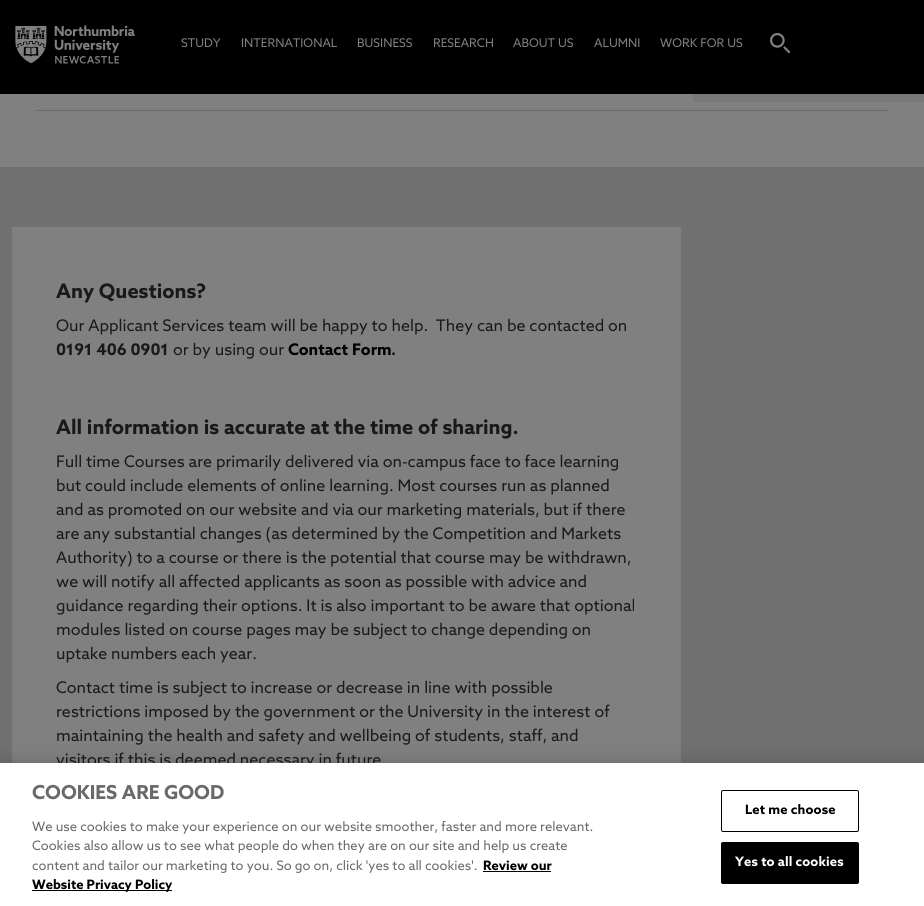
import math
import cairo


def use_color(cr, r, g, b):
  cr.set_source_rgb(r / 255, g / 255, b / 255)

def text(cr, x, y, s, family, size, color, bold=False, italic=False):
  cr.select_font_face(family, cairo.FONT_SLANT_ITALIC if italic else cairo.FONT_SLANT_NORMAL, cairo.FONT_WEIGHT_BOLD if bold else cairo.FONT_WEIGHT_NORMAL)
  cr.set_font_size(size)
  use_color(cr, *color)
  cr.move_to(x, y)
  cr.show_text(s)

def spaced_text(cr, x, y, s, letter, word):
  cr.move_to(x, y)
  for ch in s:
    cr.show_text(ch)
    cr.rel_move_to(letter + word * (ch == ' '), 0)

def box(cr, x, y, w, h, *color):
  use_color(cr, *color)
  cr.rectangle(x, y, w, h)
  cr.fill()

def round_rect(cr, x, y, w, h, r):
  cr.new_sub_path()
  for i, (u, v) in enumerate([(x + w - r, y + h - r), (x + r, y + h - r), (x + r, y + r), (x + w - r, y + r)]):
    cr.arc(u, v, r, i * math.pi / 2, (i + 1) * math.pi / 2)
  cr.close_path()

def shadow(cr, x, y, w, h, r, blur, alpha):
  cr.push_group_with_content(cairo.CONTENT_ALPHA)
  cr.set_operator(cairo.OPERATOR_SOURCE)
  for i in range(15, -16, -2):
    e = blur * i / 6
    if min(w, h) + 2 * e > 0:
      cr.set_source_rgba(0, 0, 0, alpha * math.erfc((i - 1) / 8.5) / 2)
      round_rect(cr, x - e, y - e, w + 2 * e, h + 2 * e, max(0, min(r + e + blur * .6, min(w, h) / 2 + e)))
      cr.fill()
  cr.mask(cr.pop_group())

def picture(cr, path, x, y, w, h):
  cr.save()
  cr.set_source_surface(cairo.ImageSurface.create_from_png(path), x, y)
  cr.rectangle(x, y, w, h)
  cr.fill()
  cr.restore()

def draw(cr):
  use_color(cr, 128, 128, 128)
  cr.paint()
  box(cr, 0, 0, 924, 94, 0, 0, 0)
  picture(cr, "img_01.png", 15, 25, 120, 39)
  picture(cr, "img_02.png", 770, 33, 20, 20)
  box(cr, 693, 94, 231, 8, 120, 120, 120)
  box(cr, 36, 110, 852, 1, 106, 106, 106)
  box(cr, 0, 167, 924, 596, 112, 112, 112)
  box(cr, 12, 227, 669, 536, 128, 128, 128)
  use_color(cr, 0, 0, 0)
  shadow(cr, 0, 763, 924, 143, 0, 9, 0.2)
  text(cr, 181, 47, "STUDY", "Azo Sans", 12, (128, 128, 128))
  text(cr, 241, 47, "INTERNATIONAL", "Azo Sans", 12, (128, 128, 128))
  text(cr, 357, 47, "BUSINESS", "Azo Sans", 12, (128, 128, 128))
  text(cr, 433, 47, "RESEARCH", "Azo Sans", 12, (128, 128, 128))
  text(cr, 513, 47, "ABOUT US", "Azo Sans", 12, (128, 128, 128))
  text(cr, 594, 47, "ALUMNI", "Azo Sans", 12, (128, 128, 128))
  text(cr, 660, 47, "WORK FOR US", "Azo Sans", 12, (128, 128, 128))
  text(cr, 56, 298, "Any Questions?", "Azo Sans", 20, (25, 25, 25), bold=True)
  text(cr, 56, 331, "Our Applicant Services team will be happy to help.  They can be contacted on", "Azo Sans", 16, (25, 25, 25))
  text(cr, 56, 355, "0191 406 0901", "Azo Sans", 16, (25, 25, 25), bold=True)
  text(cr, 173, 355, "or by using our", "Azo Sans", 16, (25, 25, 25))
  text(cr, 288, 355, "Contact Form", "Azo Sans", 16, (0, 0, 0), bold=True)
  text(cr, 391, 355, ".", "Azo Sans", 16, (25, 25, 25), bold=True)
  text(cr, 56, 434, "All information is accurate at the time of sharing.", "Azo Sans", 20, (25, 25, 25), bold=True)
  text(cr, 56, 467, "Full time Courses are primarily delivered via on-campus face to face learning", "Azo Sans", 16, (25, 25, 25))
  text(cr, 56, 491, "but could include elements of online learning. Most courses run as planned", "Azo Sans", 16, (25, 25, 25))
  text(cr, 56, 515, "and as promoted on our website and via our marketing materials, but if there", "Azo Sans", 16, (25, 25, 25))
  text(cr, 56, 539, "are any substantial changes (as determined by the Competition and Markets", "Azo Sans", 16, (25, 25, 25))
  text(cr, 56, 563, "Authority) to a course or there is the potential that course may be withdrawn,", "Azo Sans", 16, (25, 25, 25))
  text(cr, 56, 587, "we will notify all affected applicants as soon as possible with advice and", "Azo Sans", 16, (25, 25, 25))
  text(cr, 56, 611, "guidance regarding their options. It is also important to be aware that optional", "Azo Sans", 16, (25, 25, 25))
  text(cr, 56, 635, "modules listed on course pages may be subject to change depending on", "Azo Sans", 16, (25, 25, 25))
  text(cr, 56, 659, "uptake numbers each year.", "Azo Sans", 16, (25, 25, 25))
  text(cr, 56, 693, "Contact time is subject to increase or decrease in line with possible", "Azo Sans", 16, (25, 25, 25))
  text(cr, 56, 717, "restrictions imposed by the government or the University in the interest of", "Azo Sans", 16, (25, 25, 25))
  text(cr, 56, 741, "maintaining the health and safety and wellbeing of students, staff, and", "Azo Sans", 16, (25, 25, 25))
  text(cr, 56, 765, "visitors if this is deemed necessary in future", "Azo Sans", 16, (25, 25, 25))
  box(cr, 0, 763, 924, 143, 255, 255, 255)
  text(cr, 32, 799, "COOKIES ARE GOOD", "Azo Sans", 19.25, (105, 105, 105), bold=True)
  text(cr, 32, 831, "We use cookies to make your experience on our website smoother, faster and more relevant.", "Azo Sans", 13, (105, 105, 105))
  text(cr, 32, 850, "Cookies also allow us to see what people do when they are on our site and help us create", "Azo Sans", 13, (105, 105, 105))
  text(cr, 32, 870, "content and tailor our marketing to you. So go on, click 'yes to all cookies'.", "Azo Sans", 13, (105, 105, 105))
  text(cr, 483, 870, "Review our", "Azo Sans", 13, (0, 0, 0), bold=True)
  box(cr, 483, 871, 68, 1, 0, 0, 0)
  box(cr, 32, 890, 140, 1, 0, 0, 0)
  text(cr, 32, 889, "Website Privacy Policy", "Azo Sans", 13, (0, 0, 0), bold=True)
  round_rect(cr, 721.5, 790.5, 137, 41, 1.5)
  cr.set_line_width(1)
  cr.stroke()
  spaced_text(cr, 745, 814, "Let me choose", 0.1, 0)
  round_rect(cr, 721.5, 842.5, 137, 41, 1.5)
  cr.fill_preserve()
  cr.stroke()
  use_color(cr, 255, 255, 255)
  spaced_text(cr, 735, 866, "Yes to all cookies", 0.1, 0)


surface = cairo.ImageSurface(cairo.FORMAT_RGB24, 924, 906)
cr = cairo.Context(surface)
options = cairo.FontOptions()
options.set_hint_metrics(cairo.HINT_METRICS_OFF)
options.set_hint_style(cairo.HINT_STYLE_NONE)
cr.set_font_options(options)
cr.set_miter_limit(4)
draw(cr)
surface.write_to_png("out.png")
